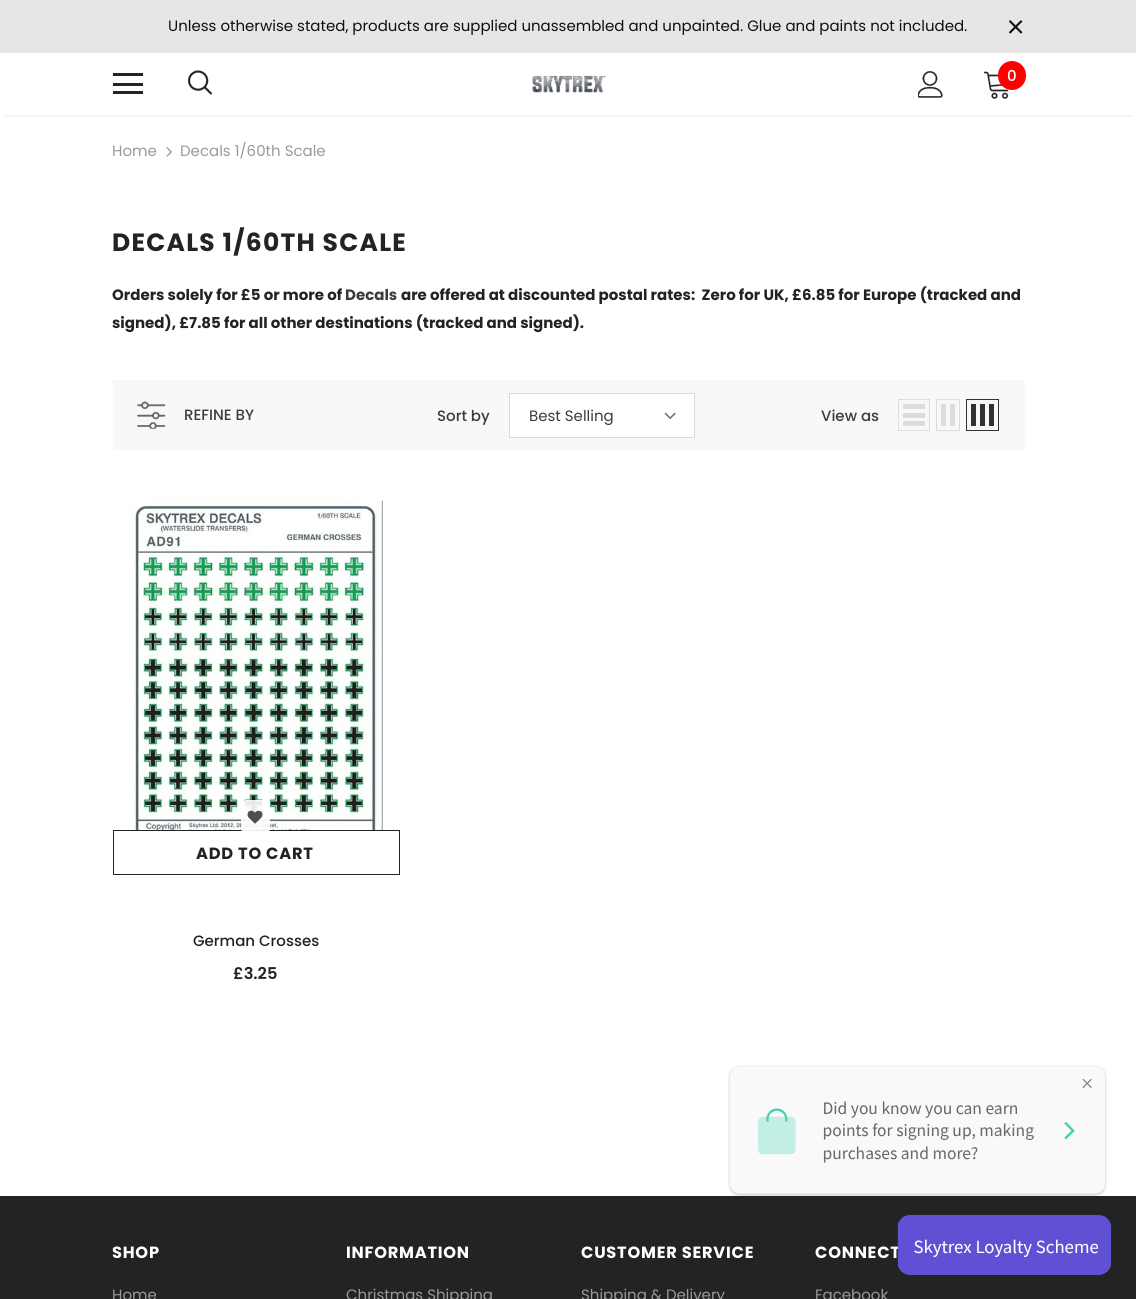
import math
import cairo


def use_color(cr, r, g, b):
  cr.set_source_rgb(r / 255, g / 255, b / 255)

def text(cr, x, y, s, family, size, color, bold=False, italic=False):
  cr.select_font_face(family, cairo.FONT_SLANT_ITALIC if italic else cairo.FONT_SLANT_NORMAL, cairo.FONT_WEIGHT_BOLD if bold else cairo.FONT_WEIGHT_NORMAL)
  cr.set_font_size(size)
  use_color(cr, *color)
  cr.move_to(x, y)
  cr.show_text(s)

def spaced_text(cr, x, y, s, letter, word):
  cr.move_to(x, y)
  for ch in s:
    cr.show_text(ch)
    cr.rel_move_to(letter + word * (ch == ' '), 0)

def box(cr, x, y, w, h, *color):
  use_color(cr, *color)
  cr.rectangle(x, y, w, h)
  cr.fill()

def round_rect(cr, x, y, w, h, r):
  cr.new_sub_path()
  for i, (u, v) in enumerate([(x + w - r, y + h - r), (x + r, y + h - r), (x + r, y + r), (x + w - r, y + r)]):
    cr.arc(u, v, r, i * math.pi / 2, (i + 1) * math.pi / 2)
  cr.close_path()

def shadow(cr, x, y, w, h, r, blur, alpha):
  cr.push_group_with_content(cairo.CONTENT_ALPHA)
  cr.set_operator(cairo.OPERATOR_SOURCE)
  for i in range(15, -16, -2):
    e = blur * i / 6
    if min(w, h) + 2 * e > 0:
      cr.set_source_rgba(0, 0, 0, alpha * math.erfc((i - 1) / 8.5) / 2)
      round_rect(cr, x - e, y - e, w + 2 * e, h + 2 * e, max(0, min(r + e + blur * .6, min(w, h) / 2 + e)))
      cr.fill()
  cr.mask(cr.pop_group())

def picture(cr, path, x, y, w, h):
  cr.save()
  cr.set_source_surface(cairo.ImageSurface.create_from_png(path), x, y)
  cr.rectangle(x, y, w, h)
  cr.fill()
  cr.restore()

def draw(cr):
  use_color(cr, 255, 255, 255)
  cr.paint()
  box(cr, 0, 0, 1136, 53, 230, 230, 230)
  picture(cr, "img_01.png", 1009, 20, 14, 14)
  cr.save()
  cr.rectangle(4, 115, 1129, 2)
  cr.clip()
  use_color(cr, 0, 0, 0)
  shadow(cr, 4, 60, 1129, 55, 0, 2, 0.12)
  cr.restore()
  box(cr, 113, 73, 30, 3, 35, 35, 35)
  box(cr, 113, 83, 30, 3, 35, 35, 35)
  box(cr, 113, 91, 30, 3, 35, 35, 35)
  picture(cr, "img_02.png", 188, 70, 24, 25)
  picture(cr, "img_03.png", 532, 75, 74, 18)
  picture(cr, "img_04.png", 918, 71, 25, 27)
  picture(cr, "img_05.png", 984, 71, 24, 28)
  use_color(cr, 255, 0, 0)
  round_rect(cr, 998, 61, 28, 29, 14)
  cr.fill()
  picture(cr, "img_06.png", 166, 147, 6, 10)
  box(cr, 113, 380, 912, 70, 248, 248, 248)
  picture(cr, "img_07.png", 137, 401, 29, 28)
  use_color(cr, 255, 255, 255)
  cr.rectangle(509.5, 393.5, 185, 44)
  cr.fill_preserve()
  use_color(cr, 218, 218, 218)
  cr.set_line_width(1)
  cr.stroke()
  picture(cr, "img_08.png", 664, 412, 12, 8)
  cr.rectangle(898.5, 399.5, 31, 31)
  use_color(cr, 220, 220, 220)
  cr.stroke()
  box(cr, 903, 421, 22, 5, 220, 220, 220)
  box(cr, 903, 413, 22, 5, 220, 220, 220)
  box(cr, 903, 404, 22, 5, 220, 220, 220)
  cr.rectangle(936.5, 399.5, 23, 31)
  cr.stroke()
  box(cr, 950, 404, 5, 22, 220, 220, 220)
  box(cr, 941, 404, 5, 22, 220, 220, 220)
  cr.rectangle(966.5, 399.5, 32, 31)
  use_color(cr, 50, 50, 50)
  cr.stroke()
  box(cr, 989, 404, 5, 22, 50, 50, 50)
  box(cr, 980, 404, 5, 22, 50, 50, 50)
  box(cr, 971, 404, 5, 22, 50, 50, 50)
  picture(cr, "img_09.png", 128, 500, 255, 330)
  cr.rectangle(113.5, 830.5, 286, 44)
  use_color(cr, 35, 35, 35)
  cr.stroke()
  cr.set_source_rgba(1, 1, 1, 0.9)
  round_rect(cr, 241, 800, 29, 34, 6)
  cr.fill()
  picture(cr, "img_10.png", 247, 810, 16, 14)
  box(cr, 0, 1196, 1136, 103, 35, 35, 35)
  picture(cr, "img_11.png", 728, 1065, 379, 131)
  text(cr, 168, 31, "Unless otherwise stated, products are supplied unassembled and unpainted. Glue and paints not included.", "Poppins", 15, (15, 15, 15))
  text(cr, 1007, 81, "0", "Poppins Medium", 15, (255, 255, 255))
  text(cr, 112, 156, "Home", "Poppins", 15, (153, 153, 153))
  text(cr, 180, 156, "Decals 1/60th Scale", "Poppins", 15, (153, 153, 153))
  cr.select_font_face("Poppins", cairo.FONT_SLANT_NORMAL, cairo.FONT_WEIGHT_BOLD)
  cr.set_font_size(25)
  use_color(cr, 35, 35, 35)
  spaced_text(cr, 112, 251, "DECALS 1/60TH SCALE", 1.25, 0)
  text(cr, 112, 300, "Orders solely for £5 or more of", "Poppins", 15, (35, 35, 35), bold=True)
  text(cr, 345, 300, "Decals", "Poppins", 15, (60, 60, 60), bold=True)
  text(cr, 401, 300, "are offered at discounted postal rates:  Zero for UK, £6.85 for Europe (tracked and", "Poppins", 15, (35, 35, 35), bold=True)
  text(cr, 112, 328, "signed), £7.85 for all other destinations (tracked and signed).", "Poppins", 15, (35, 35, 35), bold=True)
  text(cr, 184, 420, "REFINE BY", "Poppins Medium", 15, (60, 60, 60))
  text(cr, 437, 421, "Sort by", "Poppins Medium", 15, (60, 60, 60))
  text(cr, 529, 421, "Best Selling", "Poppins", 15, (60, 60, 60))
  text(cr, 821, 421, "View as", "Poppins Medium", 15, (60, 60, 60))
  cr.select_font_face("Poppins", cairo.FONT_SLANT_NORMAL, cairo.FONT_WEIGHT_BOLD)
  cr.set_font_size(16.25)
  use_color(cr, 35, 35, 35)
  spaced_text(cr, 196, 859, "ADD TO CART", 0.75, 0)
  text(cr, 193, 946, "German Crosses", "Poppins Medium", 15, (35, 35, 35))
  text(cr, 233, 979, "£3.25", "Poppins SemiBold", 16.25, (35, 35, 35))
  cr.select_font_face("Poppins", cairo.FONT_SLANT_NORMAL, cairo.FONT_WEIGHT_BOLD)
  use_color(cr, 255, 255, 255)
  spaced_text(cr, 112, 1258, "SHOP", 0.75, 0)
  text(cr, 112, 1300, "Home", "Poppins", 15, (153, 153, 153))
  cr.select_font_face("Poppins", cairo.FONT_SLANT_NORMAL, cairo.FONT_WEIGHT_BOLD)
  cr.set_font_size(16.25)
  use_color(cr, 255, 255, 255)
  spaced_text(cr, 346, 1258, "INFORMATION", 0.75, 0)
  text(cr, 346, 1300, "Christmas Shipping", "Poppins", 15, (153, 153, 153))
  cr.select_font_face("Poppins", cairo.FONT_SLANT_NORMAL, cairo.FONT_WEIGHT_BOLD)
  cr.set_font_size(16.25)
  use_color(cr, 255, 255, 255)
  spaced_text(cr, 581, 1258, "CUSTOMER SERVICE", 0.75, 0)
  text(cr, 581, 1300, "Shipping & Delivery", "Poppins", 15, (153, 153, 153))
  cr.select_font_face("Poppins", cairo.FONT_SLANT_NORMAL, cairo.FONT_WEIGHT_BOLD)
  cr.set_font_size(16.25)
  use_color(cr, 255, 255, 255)
  spaced_text(cr, 815, 1258, "CONNECT", 0.75, 0)
  text(cr, 815, 1300, "Facebook", "Poppins", 15, (153, 153, 153))
  picture(cr, "img_12.png", 897, 1215, 215, 60)


surface = cairo.ImageSurface(cairo.FORMAT_RGB24, 1136, 1299)
cr = cairo.Context(surface)
options = cairo.FontOptions()
options.set_hint_metrics(cairo.HINT_METRICS_OFF)
options.set_hint_style(cairo.HINT_STYLE_NONE)
cr.set_font_options(options)
cr.set_miter_limit(4)
draw(cr)
surface.write_to_png("out.png")
